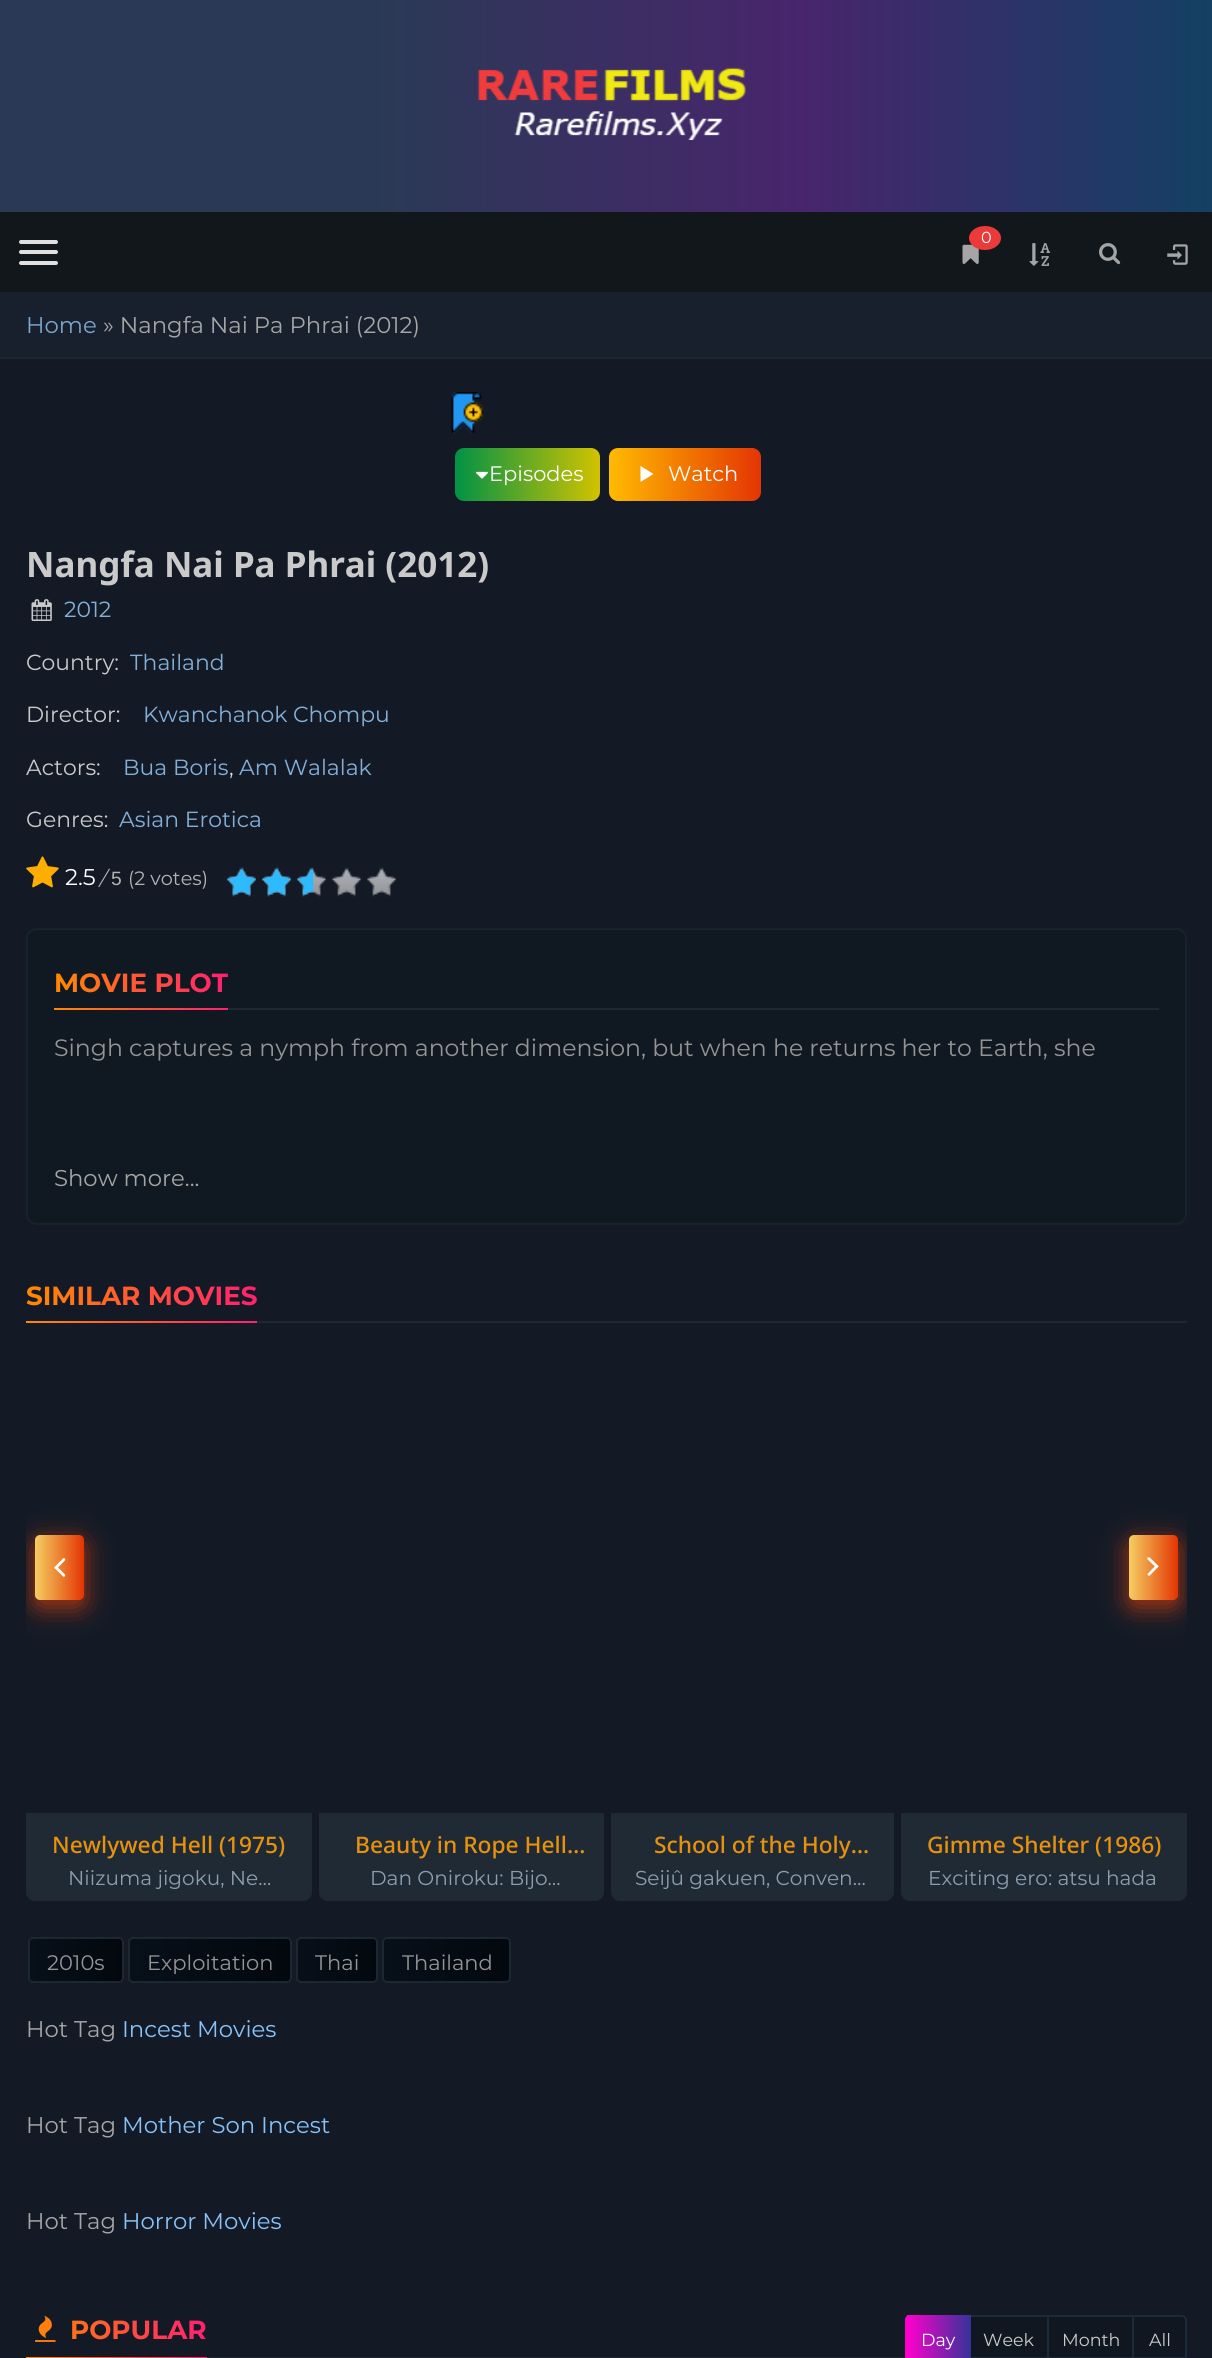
import math
import cairo


def use_color(cr, r, g, b):
  cr.set_source_rgb(r / 255, g / 255, b / 255)

def text(cr, x, y, s, family, size, color, bold=False, italic=False):
  cr.select_font_face(family, cairo.FONT_SLANT_ITALIC if italic else cairo.FONT_SLANT_NORMAL, cairo.FONT_WEIGHT_BOLD if bold else cairo.FONT_WEIGHT_NORMAL)
  cr.set_font_size(size)
  use_color(cr, *color)
  cr.move_to(x, y)
  cr.show_text(s)

def box(cr, x, y, w, h, *color):
  use_color(cr, *color)
  cr.rectangle(x, y, w, h)
  cr.fill()

def round_rect(cr, x, y, w, h, r):
  cr.new_sub_path()
  for i, (u, v) in enumerate([(x + w - r, y + h - r), (x + r, y + h - r), (x + r, y + r), (x + w - r, y + r)]):
    cr.arc(u, v, r, i * math.pi / 2, (i + 1) * math.pi / 2)
  cr.close_path()

def shadow(cr, x, y, w, h, r, blur, alpha):
  cr.push_group_with_content(cairo.CONTENT_ALPHA)
  cr.set_operator(cairo.OPERATOR_SOURCE)
  for i in range(15, -16, -2):
    e = blur * i / 6
    if min(w, h) + 2 * e > 0:
      cr.set_source_rgba(0, 0, 0, alpha * math.erfc((i - 1) / 8.5) / 2)
      round_rect(cr, x - e, y - e, w + 2 * e, h + 2 * e, max(0, min(r + e + blur * .6, min(w, h) / 2 + e)))
      cr.fill()
  cr.mask(cr.pop_group())

def picture(cr, path, x, y, w, h):
  cr.save()
  cr.set_source_surface(cairo.ImageSurface.create_from_png(path), x, y)
  cr.rectangle(x, y, w, h)
  cr.fill()
  cr.restore()

def draw(cr):
  use_color(cr, 255, 255, 255)
  cr.paint()
  gradient = cairo.LinearGradient(0, 106, 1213, 106)
  gradient.add_color_stop_rgba(0.31, 0.165, 0.227, 0.337, 1)
  gradient.add_color_stop_rgba(0.66, 0.282, 0.145, 0.424, 1)
  gradient.add_color_stop_rgba(1, 0.075, 0.251, 0.392, 1)
  cr.set_source(gradient)
  cr.rectangle(0, 0, 1212, 212)
  cr.fill()
  picture(cr, "img_01.png", 477, 67, 269, 73)
  box(cr, 0, 212, 1212, 80, 18, 23, 27)
  picture(cr, "img_02.png", 962, 244, 17, 20)
  use_color(cr, 234, 58, 58)
  cr.new_path()
  cr.move_to(985, 226)
  cr.curve_to(994, 226, 1001, 231.5, 1001, 238)
  cr.curve_to(1001, 244.5, 994, 250, 985, 250)
  cr.curve_to(976, 250, 969, 244.5, 969, 238)
  cr.curve_to(969, 231.5, 976, 226, 985, 226)
  cr.close_path()
  cr.fill()
  use_color(cr, 224, 224, 224)
  round_rect(cr, 19, 240, 39, 4, 2)
  cr.fill()
  round_rect(cr, 19, 250, 39, 4, 2)
  cr.fill()
  round_rect(cr, 19, 261, 39, 4, 2)
  cr.fill()
  picture(cr, "img_03.png", 1029, 243, 22, 23)
  picture(cr, "img_04.png", 1099, 243, 22, 22)
  picture(cr, "img_05.png", 1167, 244, 21, 21)
  box(cr, 0, 359, 1212, 1999, 19, 26, 38)
  box(cr, 0, 292, 1212, 65, 24, 32, 46)
  box(cr, 0, 357, 1212, 2, 30, 39, 50)
  picture(cr, "img_06.png", 451, 392, 33, 42)
  gradient = cairo.LinearGradient(455, 474, 891, 474)
  gradient.add_color_stop_rgba(0, 0, 0.573, 0.271, 1)
  gradient.add_color_stop_rgba(0.33, 0.816, 0.761, 0, 1)
  gradient.add_color_stop_rgba(0.67, 0, 0.659, 0.773, 1)
  gradient.add_color_stop_rgba(1, 0.851, 0.878, 0.129, 1)
  cr.set_source(gradient)
  round_rect(cr, 455, 448, 145, 53, 9)
  cr.fill()
  picture(cr, "img_07.png", 476, 471, 12, 8)
  gradient = cairo.LinearGradient(609, 474, 1066, 474)
  gradient.add_color_stop_rgba(0, 1, 0.733, 0, 1)
  gradient.add_color_stop_rgba(0.33, 0.894, 0.212, 0.012, 1)
  gradient.add_color_stop_rgba(0.67, 1, 0.384, 0.565, 1)
  gradient.add_color_stop_rgba(1, 1, 0.314, 0, 1)
  cr.set_source(gradient)
  round_rect(cr, 609, 448, 152, 53, 9)
  cr.fill()
  use_color(cr, 255, 255, 255)
  cr.new_path()
  cr.move_to(640.5, 482)
  cr.line_to(640.5, 466)
  cr.line_to(653.5, 474)
  cr.close_path()
  cr.fill()
  picture(cr, "img_08.png", 31, 599, 21, 22)
  picture(cr, "img_09.png", 26, 856, 33, 32)
  picture(cr, "img_10.png", 227, 867, 169, 30)
  picture(cr, "img_11.png", 227, 867, 87, 30)
  use_color(cr, 16, 24, 33)
  round_rect(cr, 27, 929, 1159, 295, 10)
  cr.fill_preserve()
  use_color(cr, 24, 34, 43)
  cr.stroke()
  gradient = cairo.LinearGradient(54, 1009, 228, 1009)
  gradient.add_color_stop_rgba(0, 1, 0.541, 0, 1)
  gradient.add_color_stop_rgba(1, 1, 0.125, 0.439, 1)
  cr.set_source(gradient)
  cr.rectangle(54, 1008, 174, 2)
  cr.fill()
  box(cr, 228, 1008, 931, 2, 30, 39, 50)
  gradient = cairo.LinearGradient(26, 1322, 257, 1322)
  gradient.add_color_stop_rgba(0, 1, 0.541, 0, 1)
  gradient.add_color_stop_rgba(1, 1, 0.125, 0.439, 1)
  cr.set_source(gradient)
  cr.rectangle(26, 1321, 231, 2)
  cr.fill()
  box(cr, 257, 1321, 930, 2, 30, 39, 50)
  cr.save()
  cr.rectangle(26, 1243, 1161, 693)
  cr.clip()
  use_color(cr, 229, 66, 10)
  shadow(cr, 35, 1542, 49, 65, 5, 13, 0.75)
  cr.restore()
  gradient = cairo.LinearGradient(35, 1567, 182, 1567)
  gradient.add_color_stop_rgba(0, 0.961, 0.808, 0.384, 1)
  gradient.add_color_stop_rgba(0.33, 0.894, 0.212, 0.012, 1)
  gradient.add_color_stop_rgba(0.67, 0.98, 0.443, 0.6, 1)
  gradient.add_color_stop_rgba(1, 0.91, 0.353, 0.098, 1)
  cr.set_source(gradient)
  round_rect(cr, 35, 1535, 49, 65, 5)
  cr.fill()
  picture(cr, "img_12.png", 54, 1558, 12, 19)
  cr.save()
  cr.rectangle(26, 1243, 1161, 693)
  cr.clip()
  use_color(cr, 229, 66, 10)
  shadow(cr, 1129, 1542, 49, 65, 5, 13, 0.75)
  cr.restore()
  gradient = cairo.LinearGradient(1129, 1567, 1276, 1567)
  gradient.add_color_stop_rgba(0, 0.961, 0.808, 0.384, 1)
  gradient.add_color_stop_rgba(0.33, 0.894, 0.212, 0.012, 1)
  gradient.add_color_stop_rgba(0.67, 0.98, 0.443, 0.6, 1)
  gradient.add_color_stop_rgba(1, 0.91, 0.353, 0.098, 1)
  cr.set_source(gradient)
  round_rect(cr, 1129, 1535, 49, 65, 5)
  cr.fill()
  picture(cr, "img_13.png", 1147, 1557, 12, 19)
  use_color(cr, 32, 42, 52)
  cr.new_path()
  cr.move_to(26, 1813)
  cr.line_to(312, 1813)
  cr.line_to(312, 1892)
  cr.curve_to(312, 1897, 308, 1901, 303, 1901)
  cr.line_to(35, 1901)
  cr.curve_to(30, 1901, 26, 1897, 26, 1892)
  cr.close_path()
  cr.fill()
  cr.new_path()
  cr.move_to(319, 1813)
  cr.line_to(604, 1813)
  cr.line_to(604, 1892)
  cr.curve_to(604, 1897, 600, 1901, 595, 1901)
  cr.line_to(328, 1901)
  cr.curve_to(323, 1901, 319, 1897, 319, 1892)
  cr.close_path()
  cr.fill()
  cr.new_path()
  cr.move_to(611, 1813)
  cr.line_to(894, 1813)
  cr.line_to(894, 1892)
  cr.curve_to(894, 1897, 890, 1901, 885, 1901)
  cr.line_to(620, 1901)
  cr.curve_to(615, 1901, 611, 1897, 611, 1892)
  cr.close_path()
  cr.fill()
  cr.new_path()
  cr.move_to(901, 1813)
  cr.line_to(1187, 1813)
  cr.line_to(1187, 1892)
  cr.curve_to(1187, 1897, 1183, 1901, 1178, 1901)
  cr.line_to(910, 1901)
  cr.curve_to(905, 1901, 901, 1897, 901, 1892)
  cr.close_path()
  cr.fill()
  cr.save()
  round_rect(cr, 28, 1937, 96, 46, 5)
  cr.clip()
  gradient = cairo.LinearGradient(30, 1960, 308, 1960)
  gradient.add_color_stop_rgba(0, 0.027, 0.059, 0.098, 1)
  gradient.add_color_stop_rgba(0.51, 0.004, 0.016, 0.031, 1)
  gradient.add_color_stop_rgba(1, 0.427, 0.137, 0.137, 1)
  cr.set_source(gradient)
  cr.new_path()
  cr.move_to(30, 1937)
  cr.line_to(119, 1937)
  cr.curve_to(122, 1937, 124, 1939, 124, 1942)
  cr.line_to(124, 1978)
  cr.curve_to(124, 1981, 122, 1983, 119, 1983)
  cr.line_to(30, 1983)
  cr.close_path()
  cr.fill()
  cr.restore()
  round_rect(cr, 29, 1938, 94, 44, 4)
  use_color(cr, 29, 39, 49)
  cr.stroke()
  cr.save()
  round_rect(cr, 128, 1937, 164, 46, 5)
  cr.clip()
  gradient = cairo.LinearGradient(130, 1960, 613, 1960)
  gradient.add_color_stop_rgba(0, 0.027, 0.059, 0.098, 1)
  gradient.add_color_stop_rgba(0.51, 0.004, 0.016, 0.031, 1)
  gradient.add_color_stop_rgba(1, 0.427, 0.137, 0.137, 1)
  cr.set_source(gradient)
  cr.new_path()
  cr.move_to(130, 1937)
  cr.line_to(287, 1937)
  cr.curve_to(290, 1937, 292, 1939, 292, 1942)
  cr.line_to(292, 1978)
  cr.curve_to(292, 1981, 290, 1983, 287, 1983)
  cr.line_to(130, 1983)
  cr.close_path()
  cr.fill()
  cr.restore()
  round_rect(cr, 129, 1938, 162, 44, 4)
  cr.stroke()
  cr.save()
  round_rect(cr, 296, 1937, 82, 46, 5)
  cr.clip()
  gradient = cairo.LinearGradient(298, 1960, 534, 1960)
  gradient.add_color_stop_rgba(0, 0.027, 0.059, 0.098, 1)
  gradient.add_color_stop_rgba(0.51, 0.004, 0.016, 0.031, 1)
  gradient.add_color_stop_rgba(1, 0.427, 0.137, 0.137, 1)
  cr.set_source(gradient)
  cr.new_path()
  cr.move_to(298, 1937)
  cr.line_to(373, 1937)
  cr.curve_to(376, 1937, 378, 1939, 378, 1942)
  cr.line_to(378, 1978)
  cr.curve_to(378, 1981, 376, 1983, 373, 1983)
  cr.line_to(298, 1983)
  cr.close_path()
  cr.fill()
  cr.restore()
  round_rect(cr, 297, 1938, 80, 44, 4)
  cr.stroke()
  cr.save()
  round_rect(cr, 382, 1937, 129, 46, 5)
  cr.clip()
  gradient = cairo.LinearGradient(383, 1960, 761, 1960)
  gradient.add_color_stop_rgba(0, 0.027, 0.059, 0.098, 1)
  gradient.add_color_stop_rgba(0.51, 0.004, 0.016, 0.031, 1)
  gradient.add_color_stop_rgba(1, 0.427, 0.137, 0.137, 1)
  cr.set_source(gradient)
  cr.new_path()
  cr.move_to(383, 1937)
  cr.line_to(506, 1937)
  cr.curve_to(509, 1937, 511, 1939, 511, 1942)
  cr.line_to(511, 1978)
  cr.curve_to(511, 1981, 509, 1983, 506, 1983)
  cr.line_to(383, 1983)
  cr.close_path()
  cr.fill()
  cr.restore()
  round_rect(cr, 383, 1938, 127, 44, 4)
  cr.stroke()
  picture(cr, "img_14.png", 35, 2315, 21, 27)
  gradient = cairo.LinearGradient(26, 2358, 207, 2358)
  gradient.add_color_stop_rgba(0, 1, 0.541, 0, 1)
  gradient.add_color_stop_rgba(1, 1, 0.125, 0.439, 1)
  cr.set_source(gradient)
  cr.rectangle(26, 2357, 181, 1)
  cr.fill()
  cr.save()
  cr.new_path()
  cr.move_to(910, 2315)
  cr.line_to(971, 2315)
  cr.line_to(971, 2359)
  cr.line_to(905, 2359)
  cr.line_to(905, 2320)
  cr.curve_to(905, 2317, 907, 2315, 910, 2315)
  cr.close_path()
  cr.clip()
  gradient = cairo.LinearGradient(781, 2337, 907, 2337)
  gradient.add_color_stop_rgba(0, 1, 0, 0.8, 1)
  gradient.add_color_stop_rgba(0.51, 0.2, 0.2, 0.6, 1)
  gradient.add_color_stop_rgba(1, 1, 0, 0.8, 1)
  cr.set_source(gradient)
  cr.rectangle(905, 2315, 2, 43)
  cr.fill()
  cr.restore()
  box(cr, 971, 2317, 76, 40, 17, 23, 32)
  cr.rectangle(969, 2316, 80, 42)
  use_color(cr, 27, 43, 58)
  cr.stroke()
  gradient = cairo.LinearGradient(907, 2337, 1033, 2337)
  gradient.add_color_stop_rgba(0, 1, 0, 0.8, 1)
  gradient.add_color_stop_rgba(0.51, 0.2, 0.2, 0.6, 1)
  gradient.add_color_stop_rgba(1, 1, 0, 0.8, 1)
  cr.set_source(gradient)
  cr.rectangle(907, 2315, 64, 43)
  cr.fill()
  box(cr, 1049, 2317, 83, 40, 17, 23, 32)
  cr.rectangle(1048, 2316, 87, 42)
  use_color(cr, 27, 43, 58)
  cr.stroke()
  use_color(cr, 17, 23, 32)
  cr.new_path()
  cr.move_to(1133, 2316)
  cr.line_to(1182, 2316)
  cr.curve_to(1184, 2316, 1186, 2318, 1186, 2320)
  cr.line_to(1186, 2358)
  cr.line_to(1133, 2358)
  cr.close_path()
  cr.fill_preserve()
  use_color(cr, 27, 43, 58)
  cr.stroke()
  box(cr, 207, 2357, 698, 1, 30, 39, 50)
  text(cr, 981, 243, "0", "Montserrat", 16, (255, 255, 255))
  text(cr, 26, 333, "Home", "Montserrat", 22.75, (122, 166, 206))
  text(cr, 103, 333, "» Nangfa Nai Pa Phrai (2012)", "Montserrat", 22.75, (165, 165, 165))
  text(cr, 489, 481, "Episodes", "Montserrat", 21, (255, 255, 255))
  text(cr, 668, 481, "Watch", "Montserrat", 21, (255, 255, 255))
  text(cr, 26, 577, "Nangfa Nai Pa Phrai (2012)", "Noto Sans", 35, (202, 202, 202), bold=True)
  text(cr, 64, 617, "2012", "Montserrat", 21.9, (130, 176, 218))
  text(cr, 26, 670, "Country:", "Montserrat", 21.9, (202, 202, 202))
  text(cr, 130, 670, "Thailand", "Montserrat", 21.9, (130, 176, 218))
  text(cr, 26, 722, "Director:", "Montserrat", 21.9, (202, 202, 202))
  text(cr, 143, 722, "Kwanchanok Chompu", "Montserrat", 21.9, (130, 176, 218))
  text(cr, 26, 775, "Actors:", "Montserrat", 21.9, (202, 202, 202))
  text(cr, 123, 775, "Bua Boris", "Montserrat", 21.9, (130, 176, 218))
  text(cr, 229, 775, ",", "Montserrat", 21.9, (218, 218, 218))
  text(cr, 239, 775, "Am Walalak", "Montserrat", 21.9, (130, 176, 218))
  text(cr, 26, 827, "Genres:", "Montserrat", 21.9, (202, 202, 202))
  text(cr, 119, 827, "Asian Erotica", "Montserrat", 21.9, (130, 176, 218))
  text(cr, 65, 885, "2.5", "Montserrat", 22.75, (255, 255, 255))
  text(cr, 99, 885, "/", "Montserrat", 19.25, (187, 186, 186), italic=True)
  text(cr, 111, 885, "5", "Liberation Sans", 19.25, (179, 179, 179))
  text(cr, 128, 885, "(2 votes)", "Montserrat", 19.25, (179, 179, 179))
  cr.select_font_face("Montserrat", cairo.FONT_SLANT_NORMAL, cairo.FONT_WEIGHT_BOLD)
  cr.set_font_size(26.25)
  gradient = cairo.LinearGradient(54, 982, 228, 982)
  gradient.add_color_stop_rgba(0, 1, 0.541, 0, 1)
  gradient.add_color_stop_rgba(1, 1, 0.125, 0.439, 1)
  cr.set_source(gradient)
  cr.move_to(54, 992)
  cr.show_text("MOVIE PLOT")
  text(cr, 54, 1056, "Singh captures a nymph from another dimension, but when he returns her to Earth, she", "Montserrat", 23.6, (148, 148, 148))
  text(cr, 54, 1186, "Show more...", "Montserrat", 22.75, (165, 165, 165))
  cr.select_font_face("Montserrat", cairo.FONT_SLANT_NORMAL, cairo.FONT_WEIGHT_BOLD)
  cr.set_font_size(26.25)
  gradient = cairo.LinearGradient(26, 1296, 258, 1296)
  gradient.add_color_stop_rgba(0, 1, 0.541, 0, 1)
  gradient.add_color_stop_rgba(1, 1, 0.125, 0.439, 1)
  cr.set_source(gradient)
  cr.move_to(26, 1305)
  cr.show_text("SIMILAR MOVIES")
  text(cr, 52, 1853, "Newlywed Hell (1975)", "Noto Sans Medium", 22.75, (230, 146, 14))
  text(cr, 68, 1885, "Niizuma jigoku, Ne…", "Montserrat", 20.1, (138, 158, 175))
  text(cr, 355, 1853, "Beauty in Rope Hell…", "Noto Sans Medium", 22.75, (230, 146, 14))
  text(cr, 370, 1885, "Dan Oniroku: Bijo…", "Montserrat", 20.1, (138, 158, 175))
  text(cr, 654, 1853, "School of the Holy…", "Noto Sans Medium", 22.75, (230, 146, 14))
  text(cr, 635, 1885, "Seijû gakuen, Conven…", "Montserrat", 20.1, (138, 158, 175))
  text(cr, 927, 1853, "Gimme Shelter (1986)", "Noto Sans Medium", 22.75, (230, 146, 14))
  text(cr, 928, 1885, "Exciting ero: atsu hada", "Montserrat", 20.1, (138, 158, 175))
  text(cr, 47, 1970, "2010s", "Montserrat", 21, (148, 148, 148))
  text(cr, 147, 1970, "Exploitation", "Montserrat", 21, (148, 148, 148))
  text(cr, 315, 1970, "Thai", "Montserrat", 21, (148, 148, 148))
  text(cr, 402, 1970, "Thailand", "Montserrat", 21, (148, 148, 148))
  text(cr, 26, 2037, "Hot Tag", "Montserrat", 22.75, (165, 165, 165))
  text(cr, 122, 2037, "Incest Movies", "Montserrat", 22.75, (135, 195, 249))
  text(cr, 26, 2133, "Hot Tag", "Montserrat", 22.75, (165, 165, 165))
  text(cr, 122, 2133, "Mother Son Incest", "Montserrat", 22.75, (135, 195, 249))
  text(cr, 26, 2229, "Hot Tag", "Montserrat", 22.75, (165, 165, 165))
  text(cr, 122, 2229, "Horror Movies", "Montserrat", 22.75, (135, 195, 249))
  cr.select_font_face("Montserrat", cairo.FONT_SLANT_NORMAL, cairo.FONT_WEIGHT_BOLD)
  cr.set_font_size(26.25)
  gradient = cairo.LinearGradient(26, 2329, 207, 2329)
  gradient.add_color_stop_rgba(0, 1, 0.541, 0, 1)
  gradient.add_color_stop_rgba(1, 1, 0.125, 0.439, 1)
  cr.set_source(gradient)
  cr.move_to(70, 2339)
  cr.show_text("POPULAR")
  text(cr, 921, 2346, "Day", "Montserrat", 17.5, (255, 255, 255))
  text(cr, 983, 2346, "Week", "Montserrat", 17.5, (202, 202, 202))
  text(cr, 1062, 2346, "Month", "Montserrat", 17.5, (202, 202, 202))
  text(cr, 1149, 2346, "All", "Montserrat", 17.5, (202, 202, 202))


surface = cairo.ImageSurface(cairo.FORMAT_RGB24, 1212, 2358)
cr = cairo.Context(surface)
options = cairo.FontOptions()
options.set_hint_metrics(cairo.HINT_METRICS_OFF)
options.set_hint_style(cairo.HINT_STYLE_NONE)
cr.set_font_options(options)
cr.set_miter_limit(4)
draw(cr)
surface.write_to_png("out.png")
